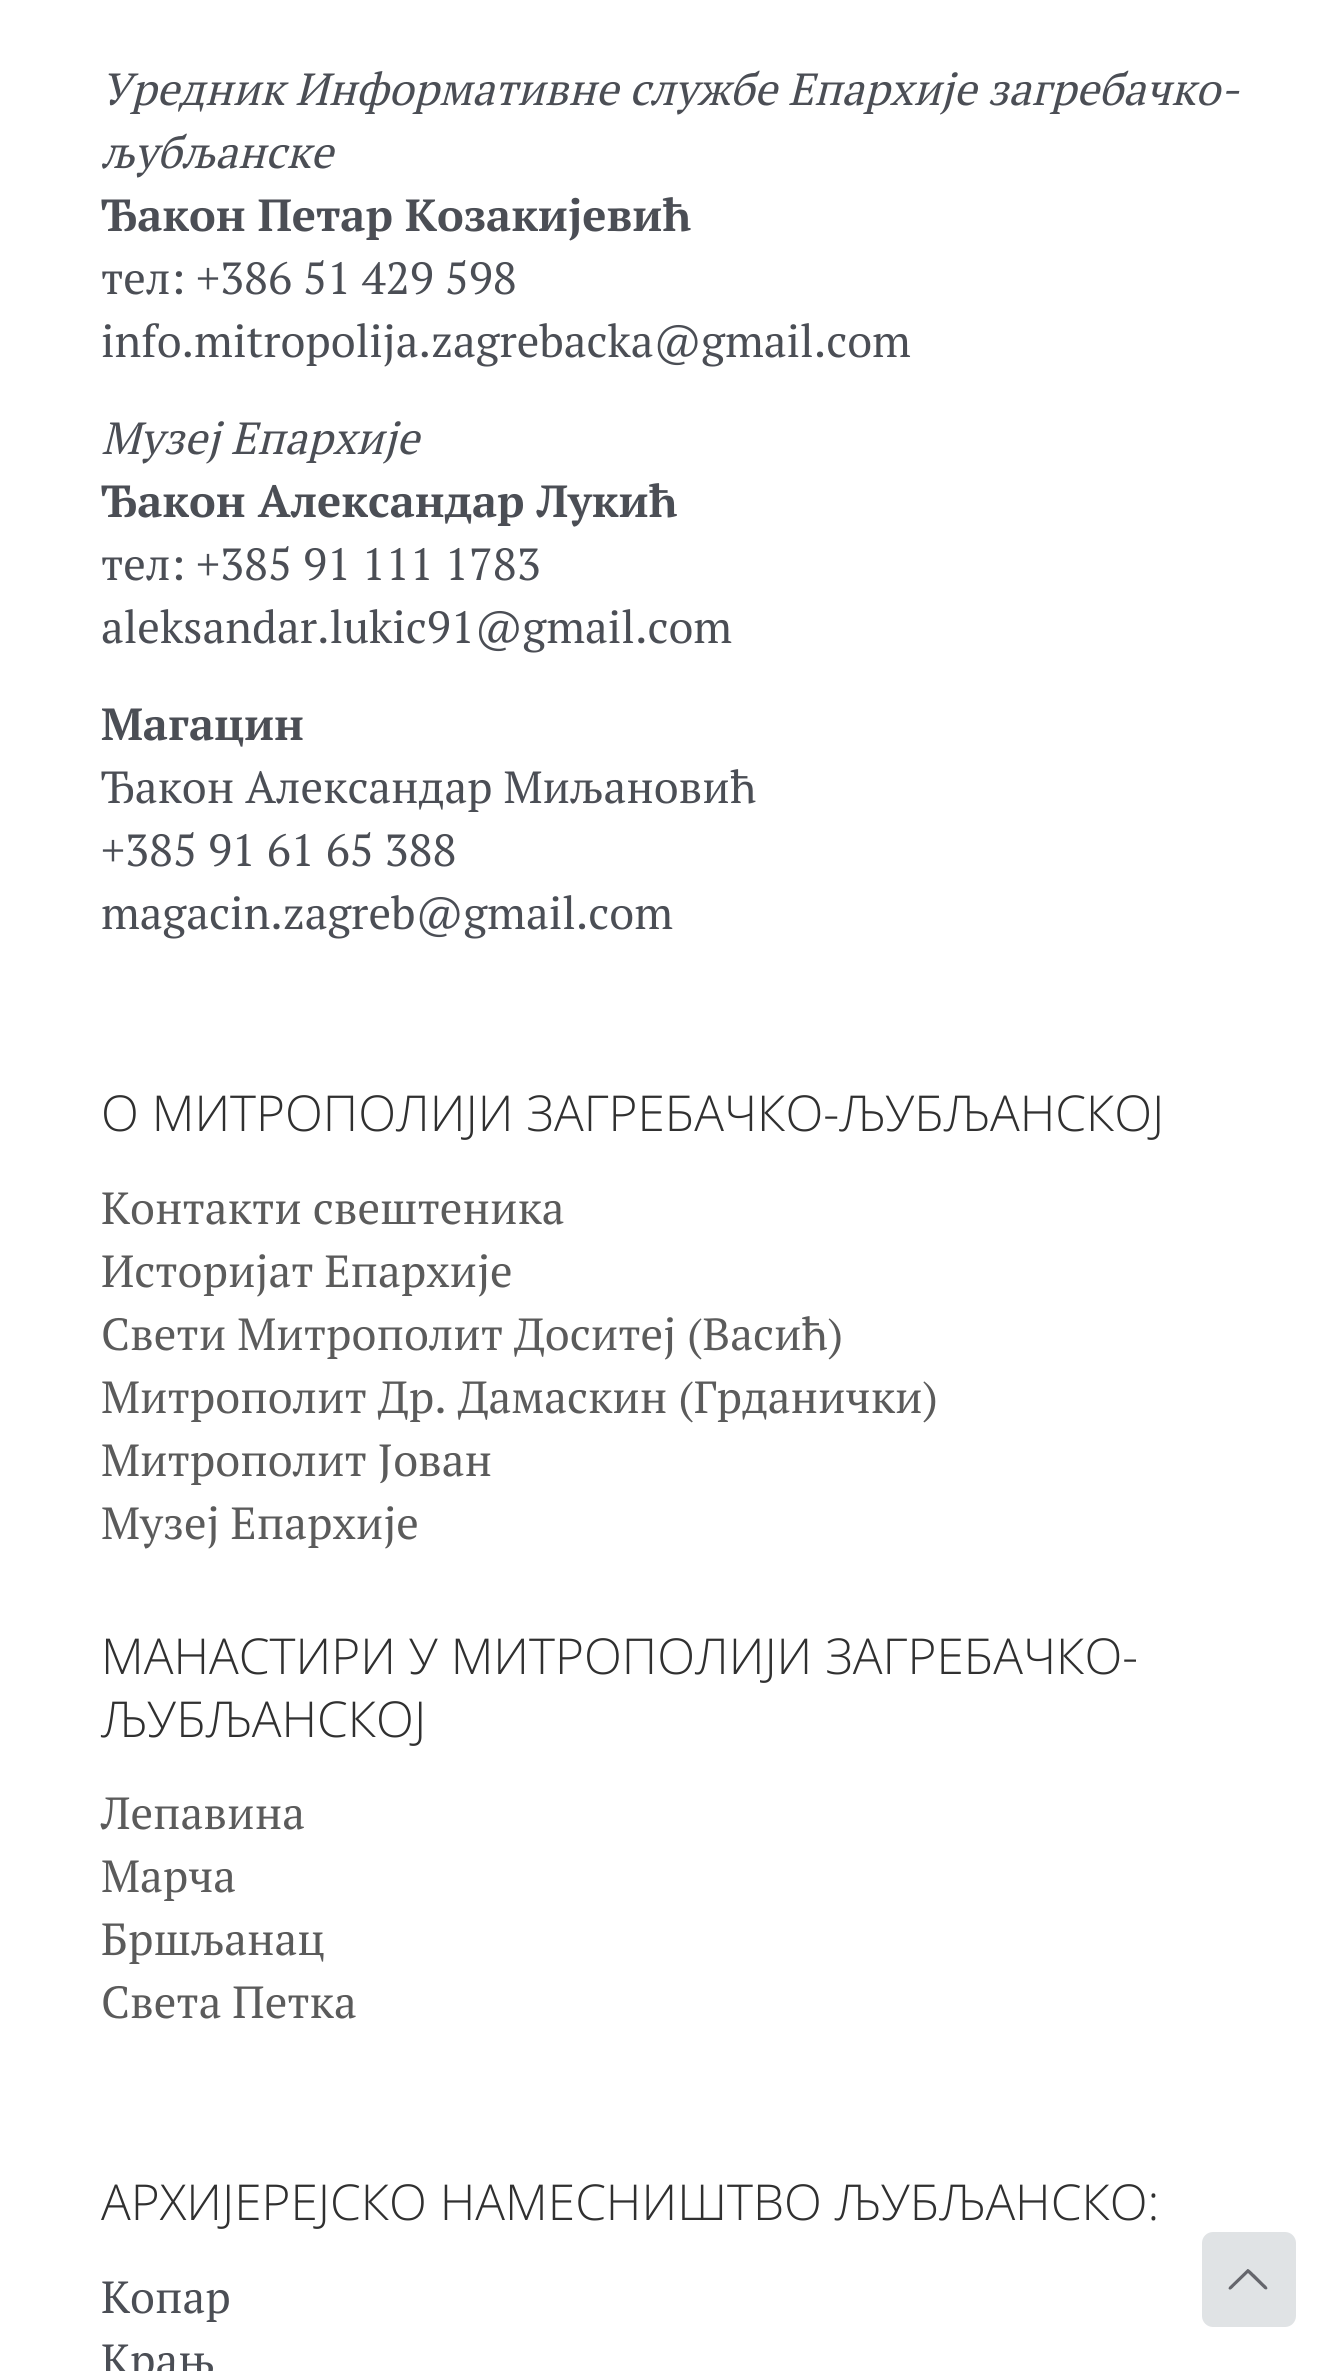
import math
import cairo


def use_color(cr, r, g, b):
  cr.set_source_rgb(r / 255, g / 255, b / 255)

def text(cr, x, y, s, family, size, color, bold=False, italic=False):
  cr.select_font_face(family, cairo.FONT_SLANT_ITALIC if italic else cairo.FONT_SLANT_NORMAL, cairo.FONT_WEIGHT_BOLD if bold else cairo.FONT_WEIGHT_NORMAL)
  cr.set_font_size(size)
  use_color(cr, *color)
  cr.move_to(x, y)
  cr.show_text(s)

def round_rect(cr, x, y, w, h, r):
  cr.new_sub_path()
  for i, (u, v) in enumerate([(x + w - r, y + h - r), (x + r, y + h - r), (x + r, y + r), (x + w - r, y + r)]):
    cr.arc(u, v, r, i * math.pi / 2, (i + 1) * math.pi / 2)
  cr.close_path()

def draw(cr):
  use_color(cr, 255, 255, 255)
  cr.paint()
  use_color(cr, 224, 227, 229)
  round_rect(cr, 1202, 2232, 94, 95, 11)
  cr.fill()
  use_color(cr, 101, 102, 108)
  cr.new_path()
  cr.move_to(1264.5, 2289)
  cr.line_to(1248, 2273)
  cr.line_to(1234, 2286.5)
  cr.curve_to(1233, 2287.5, 1230, 2291.5, 1228.5, 2288.5)
  cr.line_to(1229, 2287)
  cr.line_to(1247.5, 2269)
  cr.curve_to(1249, 2268.5, 1254, 2274.5, 1255, 2275)
  cr.line_to(1264, 2284)
  cr.curve_to(1264, 2284, 1270, 2288.5, 1266, 2289.5)
  cr.close_path()
  cr.fill()
  text(cr, 101, 105, "Уредник Информативне службе Епархије загребачко-", "PT Serif", 45, (75, 78, 85), italic=True)
  text(cr, 101, 168, "љубљанске", "PT Serif", 45, (75, 78, 85), italic=True)
  text(cr, 101, 231, "Ђакон Петар Козакијевић", "PT Serif", 45, (75, 78, 85), bold=True)
  text(cr, 101, 294, "тел: +386 51 429 598", "PT Serif", 45, (75, 78, 85))
  text(cr, 101, 357, "info.mitropolija.zagrebacka@gmail.com", "PT Serif", 45, (75, 78, 85))
  text(cr, 101, 454, "Музеј Епархије", "PT Serif", 45, (75, 78, 85), italic=True)
  text(cr, 101, 517, "Ђакон Александар Лукић", "PT Serif", 45, (75, 78, 85), bold=True)
  text(cr, 101, 580, "тел: +385 91 111 1783", "PT Serif", 45, (75, 78, 85))
  text(cr, 101, 643, "aleksandar.lukic91@gmail.com", "PT Serif", 45, (75, 78, 85))
  text(cr, 101, 740, "Магацин", "PT Serif", 45, (75, 78, 85), bold=True)
  text(cr, 101, 803, "Ђакон Александар Миљановић", "PT Serif", 45, (75, 78, 85))
  text(cr, 101, 866, "+385 91 61 65 388", "PT Serif", 45, (75, 78, 85))
  text(cr, 101, 929, "magacin.zagreb@gmail.com", "PT Serif", 45, (75, 78, 85))
  text(cr, 101, 1131, "О МИТРОПОЛИЈИ ЗАГРЕБАЧКО-ЉУБЉАНСКОЈ", "Open Sans Light", 49.5, (48, 48, 48))
  text(cr, 101, 1224, "Контакти свештеника", "PT Serif", 45, (91, 91, 91))
  text(cr, 101, 1287, "Историјат Епархије", "PT Serif", 45, (91, 91, 91))
  text(cr, 101, 1350, "Свети Митрополит Доситеј (Васић)", "PT Serif", 45, (91, 91, 91))
  text(cr, 101, 1413, "Митрополит Др. Дамаскин (Грданички)", "PT Serif", 45, (91, 91, 91))
  text(cr, 101, 1476, "Митрополит Јован", "PT Serif", 45, (91, 91, 91))
  text(cr, 101, 1539, "Музеј Епархије", "PT Serif", 45, (91, 91, 91))
  text(cr, 101, 1674, "МАНАСТИРИ У МИТРОПОЛИЈИ ЗАГРЕБАЧКО-", "Open Sans Light", 49.5, (48, 48, 48))
  text(cr, 101, 1737, "ЉУБЉАНСКОЈ", "Open Sans Light", 49.5, (48, 48, 48))
  text(cr, 101, 1829, "Лепавина", "PT Serif", 45, (91, 91, 91))
  text(cr, 101, 1892, "Марча", "PT Serif", 45, (91, 91, 91))
  text(cr, 101, 1955, "Бршљанац", "PT Serif", 45, (91, 91, 91))
  text(cr, 101, 2018, "Света Петка", "PT Serif", 45, (91, 91, 91))
  text(cr, 101, 2220, "АРХИЈЕРЕЈСКО НАМЕСНИШТВО ЉУБЉАНСКО:", "Open Sans Light", 49.5, (48, 48, 48))
  text(cr, 101, 2313, "Копар", "PT Serif", 45, (75, 78, 85))
  text(cr, 101, 2376, "Крањ", "PT Serif", 45, (75, 78, 85))


surface = cairo.ImageSurface(cairo.FORMAT_RGB24, 1339, 2371)
cr = cairo.Context(surface)
options = cairo.FontOptions()
options.set_hint_metrics(cairo.HINT_METRICS_OFF)
options.set_hint_style(cairo.HINT_STYLE_NONE)
cr.set_font_options(options)
cr.set_miter_limit(4)
draw(cr)
surface.write_to_png("out.png")
